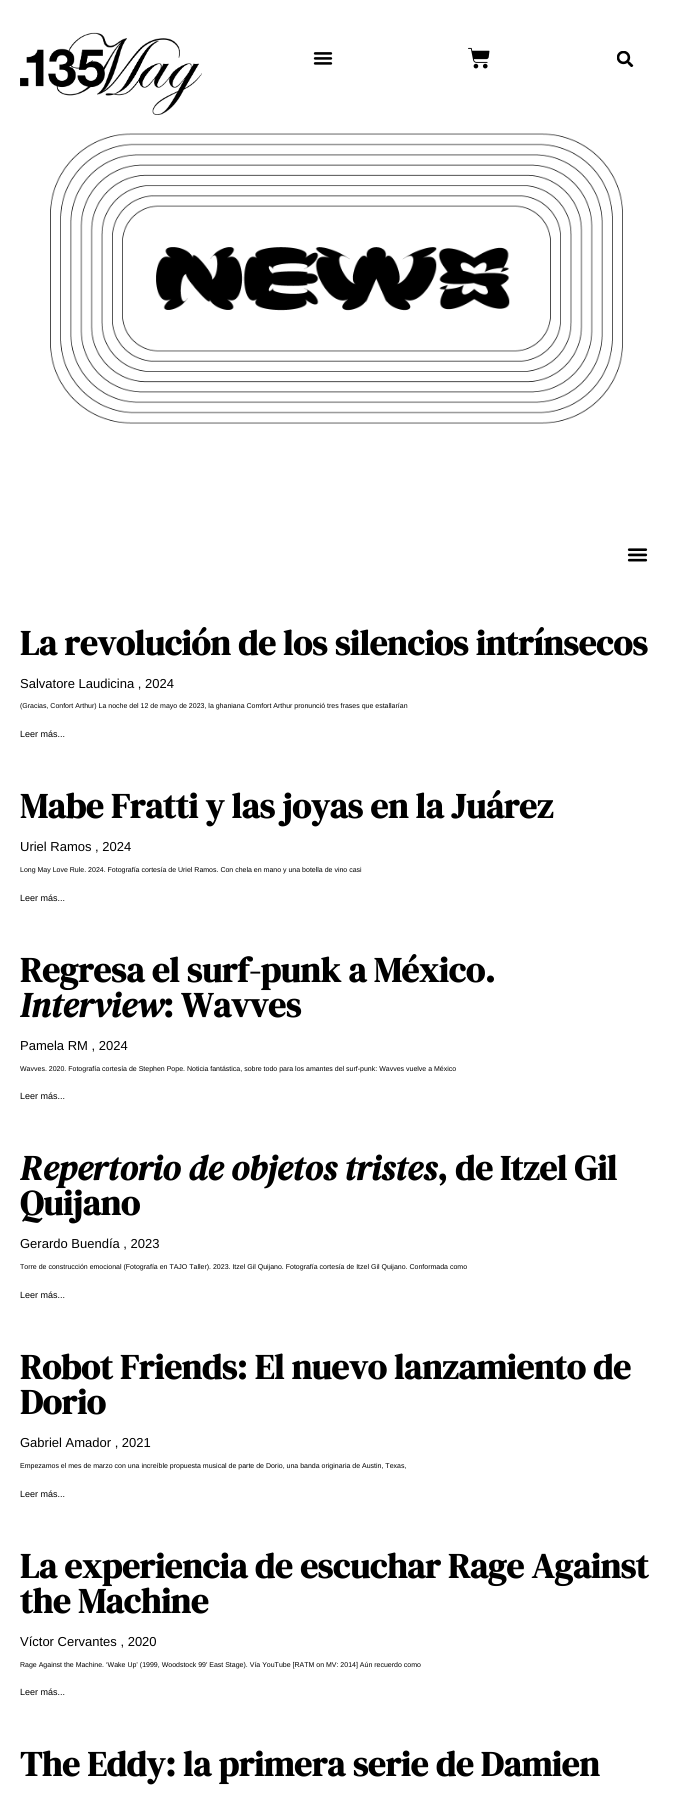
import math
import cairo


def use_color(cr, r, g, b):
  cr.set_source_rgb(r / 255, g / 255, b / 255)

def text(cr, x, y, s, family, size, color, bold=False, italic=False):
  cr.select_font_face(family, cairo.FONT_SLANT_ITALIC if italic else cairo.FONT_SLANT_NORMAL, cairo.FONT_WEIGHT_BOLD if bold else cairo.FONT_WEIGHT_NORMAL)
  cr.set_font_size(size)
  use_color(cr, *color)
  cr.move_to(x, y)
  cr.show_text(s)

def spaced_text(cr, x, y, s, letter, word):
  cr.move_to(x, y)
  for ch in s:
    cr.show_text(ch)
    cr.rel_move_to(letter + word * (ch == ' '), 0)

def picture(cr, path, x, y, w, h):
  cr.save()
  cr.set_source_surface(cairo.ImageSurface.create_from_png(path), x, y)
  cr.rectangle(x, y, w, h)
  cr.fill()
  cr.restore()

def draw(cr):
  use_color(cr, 255, 255, 255)
  cr.paint()
  picture(cr, "img_01.png", 20, 32, 182, 83)
  picture(cr, "img_02.png", 313, 52, 20, 13)
  picture(cr, "img_03.png", 468, 47, 22, 22)
  picture(cr, "img_04.png", 617, 51, 17, 16)
  picture(cr, "img_05.png", 50, 133, 573, 291)
  picture(cr, "img_06.png", 627, 548, 21, 14)
  cr.select_font_face("DM Serif Display", cairo.FONT_SLANT_NORMAL, cairo.FONT_WEIGHT_BOLD)
  cr.set_font_size(35)
  use_color(cr, 0, 0, 0)
  spaced_text(cr, 20, 655, "La revolución de los silencios intrínsecos", -0.1, 0)
  text(cr, 20, 688, "Salvatore Laudicina , 2024", "Liberation Sans", 13, (0, 0, 0))
  text(cr, 20, 708, "(Gracias, Confort Arthur) La noche del 12 de mayo de 2023, la ghaniana Comfort Arthur pronunció tres frases que estallarían", "Liberation Sans", 7, (0, 0, 0))
  text(cr, 20, 737, "Leer más...", "Liberation Sans", 9, (0, 0, 0))
  cr.select_font_face("DM Serif Display", cairo.FONT_SLANT_NORMAL, cairo.FONT_WEIGHT_BOLD)
  cr.set_font_size(35)
  spaced_text(cr, 20, 818, "Mabe Fratti y las joyas en la Juárez", -0.1, 0)
  text(cr, 20, 851, "Uriel Ramos , 2024", "Liberation Sans", 13, (0, 0, 0))
  text(cr, 20, 872, "Long May Love Rule. 2024. Fotografía cortesía de Uriel Ramos. Con chela en mano y una botella de vino casi", "Liberation Sans", 7, (0, 0, 0))
  text(cr, 20, 901, "Leer más...", "Liberation Sans", 9, (0, 0, 0))
  cr.select_font_face("DM Serif Display", cairo.FONT_SLANT_NORMAL, cairo.FONT_WEIGHT_BOLD)
  cr.set_font_size(35)
  spaced_text(cr, 20, 982, "Regresa el surf-punk a México.", -0.1, 0)
  cr.select_font_face("DM Serif Display", cairo.FONT_SLANT_ITALIC, cairo.FONT_WEIGHT_BOLD)
  spaced_text(cr, 20, 1017, "Interview", -0.1, 0)
  cr.select_font_face("DM Serif Display", cairo.FONT_SLANT_NORMAL, cairo.FONT_WEIGHT_BOLD)
  spaced_text(cr, 163, 1017, ": Wavves", -0.1, 0)
  text(cr, 20, 1050, "Pamela RM , 2024", "Liberation Sans", 13, (0, 0, 0))
  text(cr, 20, 1071, "Wavves. 2020. Fotografía cortesía de Stephen Pope. Noticia fantástica, sobre todo para los amantes del surf-punk: Wavves vuelve a México", "Liberation Sans", 7, (0, 0, 0))
  text(cr, 20, 1099, "Leer más...", "Liberation Sans", 9, (0, 0, 0))
  cr.select_font_face("DM Serif Display", cairo.FONT_SLANT_ITALIC, cairo.FONT_WEIGHT_BOLD)
  cr.set_font_size(35)
  spaced_text(cr, 20, 1180, "Repertorio de objetos tristes", -0.1, 0)
  cr.select_font_face("DM Serif Display", cairo.FONT_SLANT_NORMAL, cairo.FONT_WEIGHT_BOLD)
  spaced_text(cr, 437, 1180, ", de Itzel Gil", -0.1, 0)
  spaced_text(cr, 20, 1215, "Quijano", -0.1, 0)
  text(cr, 20, 1248, "Gerardo Buendía , 2023", "Liberation Sans", 13, (0, 0, 0))
  text(cr, 20, 1269, "Torre de construcción emocional (Fotografía en TAJO Taller). 2023. Itzel Gil Quijano. Fotografía cortesía de Itzel Gil Quijano. Conformada como", "Liberation Sans", 7, (0, 0, 0))
  text(cr, 20, 1298, "Leer más...", "Liberation Sans", 9, (0, 0, 0))
  cr.select_font_face("DM Serif Display", cairo.FONT_SLANT_NORMAL, cairo.FONT_WEIGHT_BOLD)
  cr.set_font_size(35)
  spaced_text(cr, 20, 1379, "Robot Friends: El nuevo lanzamiento de", -0.1, 0)
  spaced_text(cr, 20, 1414, "Dorio", -0.1, 0)
  text(cr, 20, 1447, "Gabriel Amador , 2021", "Liberation Sans", 13, (0, 0, 0))
  text(cr, 20, 1468, "Empezamos el mes de marzo con una increíble propuesta musical de parte de Dorio, una banda originaria de Austin, Texas,", "Liberation Sans", 7, (0, 0, 0))
  text(cr, 20, 1497, "Leer más...", "Liberation Sans", 9, (0, 0, 0))
  cr.select_font_face("DM Serif Display", cairo.FONT_SLANT_NORMAL, cairo.FONT_WEIGHT_BOLD)
  cr.set_font_size(35)
  spaced_text(cr, 20, 1578, "La experiencia de escuchar Rage Against", -0.1, 0)
  spaced_text(cr, 20, 1613, "the Machine", -0.1, 0)
  text(cr, 20, 1646, "Víctor Cervantes , 2020", "Liberation Sans", 13, (0, 0, 0))
  text(cr, 20, 1667, "Rage Against the Machine. ‘Wake Up’ (1999, Woodstock 99′ East Stage). Vía YouTube [RATM on MV: 2014] Aún recuerdo como", "Liberation Sans", 7, (0, 0, 0))
  text(cr, 20, 1695, "Leer más...", "Liberation Sans", 9, (0, 0, 0))
  cr.select_font_face("DM Serif Display", cairo.FONT_SLANT_NORMAL, cairo.FONT_WEIGHT_BOLD)
  cr.set_font_size(35)
  spaced_text(cr, 20, 1776, "The Eddy: la primera serie de Damien", -0.1, 0)


surface = cairo.ImageSurface(cairo.FORMAT_RGB24, 673, 1796)
cr = cairo.Context(surface)
options = cairo.FontOptions()
options.set_hint_metrics(cairo.HINT_METRICS_OFF)
options.set_hint_style(cairo.HINT_STYLE_NONE)
cr.set_font_options(options)
cr.set_miter_limit(4)
draw(cr)
surface.write_to_png("out.png")
